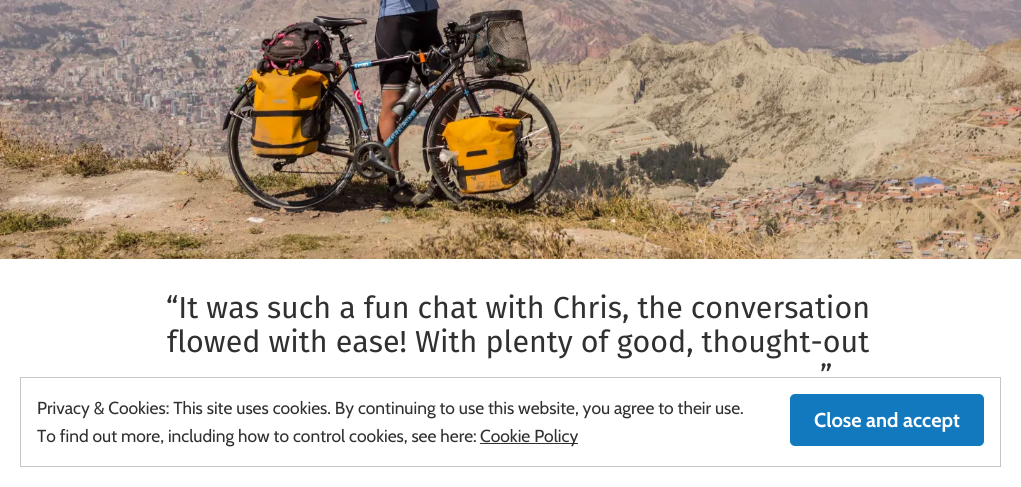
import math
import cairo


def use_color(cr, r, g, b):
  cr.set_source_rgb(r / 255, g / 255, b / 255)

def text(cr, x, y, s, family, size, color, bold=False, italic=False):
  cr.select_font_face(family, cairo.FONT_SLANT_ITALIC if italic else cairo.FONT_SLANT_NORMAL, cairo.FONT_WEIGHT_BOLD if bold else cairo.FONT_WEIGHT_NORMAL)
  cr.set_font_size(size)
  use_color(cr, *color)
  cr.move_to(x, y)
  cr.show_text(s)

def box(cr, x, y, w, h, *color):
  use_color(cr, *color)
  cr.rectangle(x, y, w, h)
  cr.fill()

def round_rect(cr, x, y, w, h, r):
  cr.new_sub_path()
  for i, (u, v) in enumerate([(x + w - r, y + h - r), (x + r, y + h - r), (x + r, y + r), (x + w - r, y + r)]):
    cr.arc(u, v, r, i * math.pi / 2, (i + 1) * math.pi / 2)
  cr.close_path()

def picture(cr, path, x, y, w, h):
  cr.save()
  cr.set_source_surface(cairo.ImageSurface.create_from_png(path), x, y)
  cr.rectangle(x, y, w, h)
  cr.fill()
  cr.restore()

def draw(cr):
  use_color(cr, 255, 255, 255)
  cr.paint()
  picture(cr, "img_01.png", 0, 0, 1021, 259)
  cr.rectangle(20.5, 377.5, 980, 89)
  use_color(cr, 197, 197, 197)
  cr.set_line_width(1)
  cr.stroke()
  use_color(cr, 18, 121, 190)
  round_rect(cr, 790, 394, 194, 52, 5)
  cr.fill()
  box(cr, 480, 443, 98, 1, 48, 48, 48)
  text(cr, 166, 318, "“It was such a fun chat with Chris, the conversation", "Fira Sans", 30.4, (48, 48, 48))
  text(cr, 167, 352, "flowed with ease! With plenty of good, thought-out", "Fira Sans", 30.4, (48, 48, 48))
  text(cr, 820, 386, "”", "Fira Sans", 30.4, (48, 48, 48))
  text(cr, 37, 414, "Privacy & Cookies: This site uses cookies. By continuing to use this website, you agree to their use.", "Cabin", 17.4, (48, 48, 48))
  text(cr, 814, 427, "Close and accept", "Cabin", 20, (255, 255, 255), bold=True)
  text(cr, 37, 442, "To find out more, including how to control cookies, see here:", "Cabin", 17.4, (48, 48, 48))
  text(cr, 480, 442, "Cookie Policy", "Cabin", 17.4, (48, 48, 48))


surface = cairo.ImageSurface(cairo.FORMAT_RGB24, 1021, 487)
cr = cairo.Context(surface)
options = cairo.FontOptions()
options.set_hint_metrics(cairo.HINT_METRICS_OFF)
options.set_hint_style(cairo.HINT_STYLE_NONE)
cr.set_font_options(options)
cr.set_miter_limit(4)
draw(cr)
surface.write_to_png("out.png")
